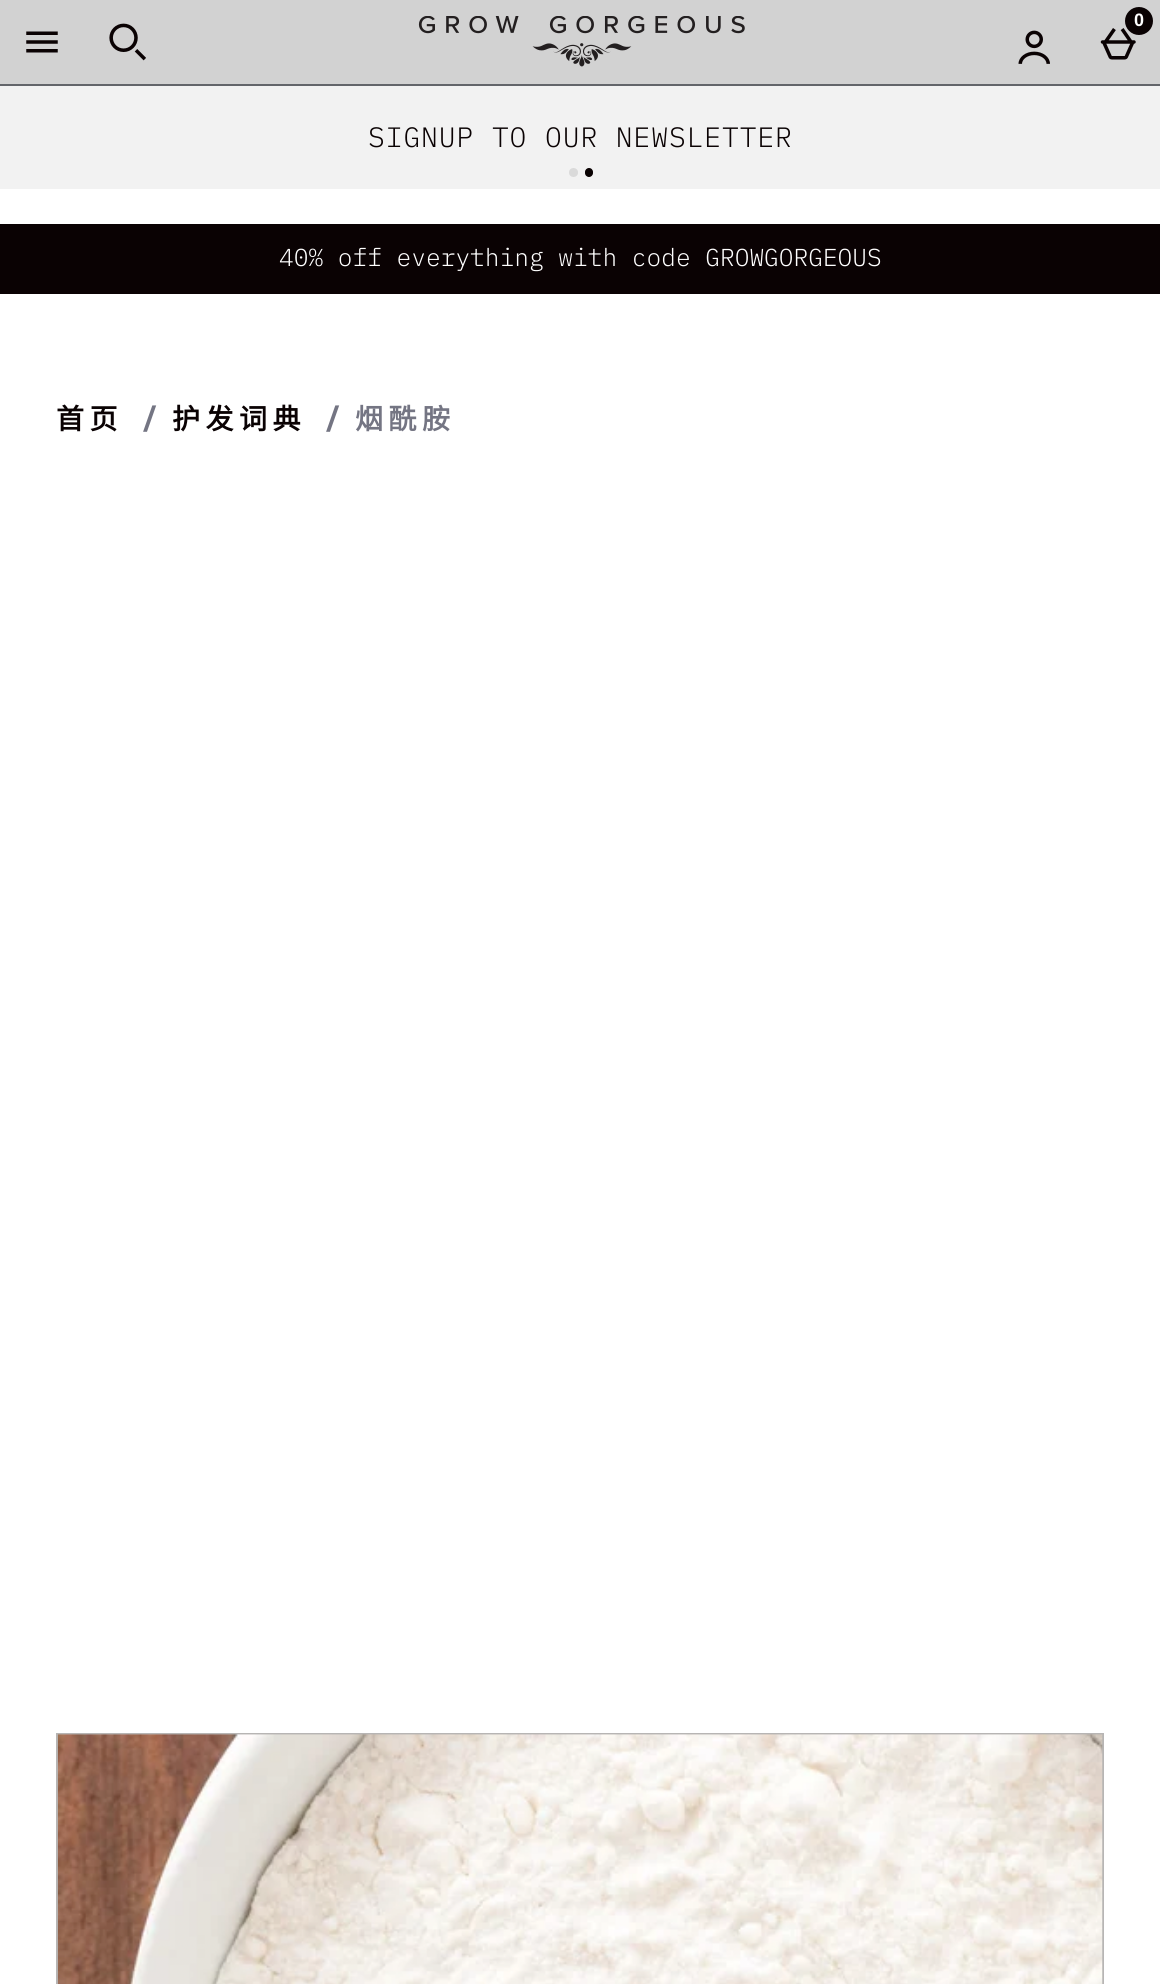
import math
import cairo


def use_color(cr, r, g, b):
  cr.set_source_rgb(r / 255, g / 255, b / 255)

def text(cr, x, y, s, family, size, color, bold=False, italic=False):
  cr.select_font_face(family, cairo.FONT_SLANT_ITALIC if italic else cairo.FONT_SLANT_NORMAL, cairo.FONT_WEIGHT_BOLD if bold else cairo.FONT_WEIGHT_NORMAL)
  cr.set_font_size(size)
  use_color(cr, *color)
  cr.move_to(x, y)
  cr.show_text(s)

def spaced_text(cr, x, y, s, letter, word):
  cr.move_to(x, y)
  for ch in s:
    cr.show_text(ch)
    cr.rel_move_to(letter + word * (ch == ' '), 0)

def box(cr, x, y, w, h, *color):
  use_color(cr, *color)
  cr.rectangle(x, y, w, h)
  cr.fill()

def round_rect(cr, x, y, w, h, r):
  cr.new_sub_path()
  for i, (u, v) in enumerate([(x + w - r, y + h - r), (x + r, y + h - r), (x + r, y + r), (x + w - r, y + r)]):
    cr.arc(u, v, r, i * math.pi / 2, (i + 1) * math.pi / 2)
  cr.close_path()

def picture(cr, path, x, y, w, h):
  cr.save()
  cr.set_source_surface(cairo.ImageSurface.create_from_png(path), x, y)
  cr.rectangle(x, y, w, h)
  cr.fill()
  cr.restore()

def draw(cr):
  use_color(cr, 255, 255, 255)
  cr.paint()
  box(cr, 0, 0, 1160, 84, 210, 210, 210)
  box(cr, 0, 84, 1160, 2, 99, 101, 106)
  picture(cr, "img_01.png", 26, 31, 32, 22)
  picture(cr, "img_02.png", 109, 23, 37, 38)
  picture(cr, "img_03.png", 418, 16, 327, 51)
  picture(cr, "img_04.png", 1018, 30, 32, 34)
  picture(cr, "img_05.png", 1100, 28, 36, 32)
  use_color(cr, 10, 2, 3)
  cr.arc(1139, 21, 14, 0, 2 * math.pi)
  cr.fill()
  box(cr, 0, 86, 1160, 103, 242, 242, 242)
  use_color(cr, 218, 218, 218)
  cr.arc(573.5, 172.5, 4.5, 0, 2 * math.pi)
  cr.fill()
  use_color(cr, 10, 2, 3)
  round_rect(cr, 585, 168, 8, 9, 4)
  cr.fill()
  box(cr, 0, 224, 1160, 70, 10, 2, 3)
  cr.rectangle(57, 1734, 1046, 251)
  use_color(cr, 183, 181, 180)
  cr.stroke()
  picture(cr, "img_06.png", 57, 1734, 1046, 250)
  text(cr, 1134, 26, "0", "Liberation Sans", 18, (255, 255, 255), bold=True)
  cr.select_font_face("IBM Plex Mono Light")
  cr.set_font_size(28)
  use_color(cr, 10, 2, 3)
  spaced_text(cr, 368, 147, "SIGNUP TO OUR NEWSLETTER", 0.9, 0)
  text(cr, 279, 266, "40% off everything with code GROWGORGEOUS", "IBM Plex Mono Light", 24.5, (255, 255, 255))
  cr.select_font_face("Noto Sans CJK SC", cairo.FONT_SLANT_NORMAL, cairo.FONT_WEIGHT_BOLD)
  cr.set_font_size(28)
  use_color(cr, 10, 2, 3)
  spaced_text(cr, 56, 429, "首页", 5.5, 0)
  cr.select_font_face("Montserrat", cairo.FONT_SLANT_NORMAL, cairo.FONT_WEIGHT_BOLD)
  use_color(cr, 116, 117, 131)
  spaced_text(cr, 144, 429, "/", 5.5, 0)
  cr.select_font_face("Noto Sans CJK SC", cairo.FONT_SLANT_NORMAL, cairo.FONT_WEIGHT_BOLD)
  use_color(cr, 10, 2, 3)
  spaced_text(cr, 172, 429, "护发词典", 5.5, 0)
  cr.select_font_face("Montserrat", cairo.FONT_SLANT_NORMAL, cairo.FONT_WEIGHT_BOLD)
  use_color(cr, 116, 117, 131)
  spaced_text(cr, 327, 429, "/", 5.5, 0)
  cr.select_font_face("Noto Sans CJK SC", cairo.FONT_SLANT_NORMAL, cairo.FONT_WEIGHT_BOLD)
  spaced_text(cr, 355, 429, "烟酰胺", 5.5, 0)


surface = cairo.ImageSurface(cairo.FORMAT_RGB24, 1160, 1984)
cr = cairo.Context(surface)
options = cairo.FontOptions()
options.set_hint_metrics(cairo.HINT_METRICS_OFF)
options.set_hint_style(cairo.HINT_STYLE_NONE)
cr.set_font_options(options)
cr.set_miter_limit(4)
draw(cr)
surface.write_to_png("out.png")
